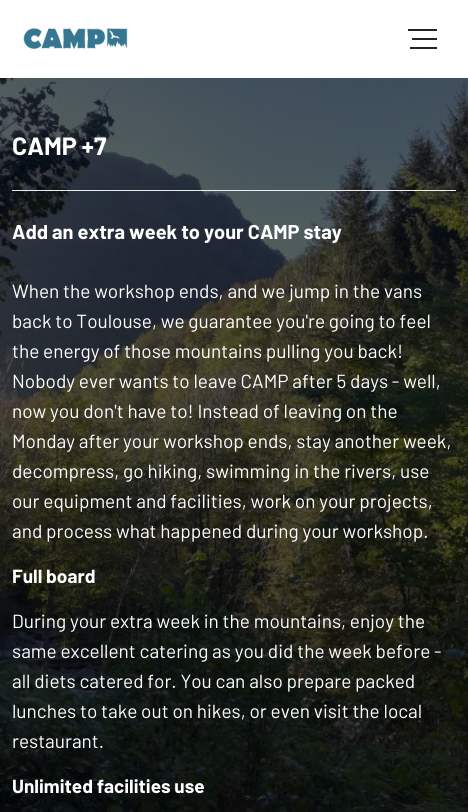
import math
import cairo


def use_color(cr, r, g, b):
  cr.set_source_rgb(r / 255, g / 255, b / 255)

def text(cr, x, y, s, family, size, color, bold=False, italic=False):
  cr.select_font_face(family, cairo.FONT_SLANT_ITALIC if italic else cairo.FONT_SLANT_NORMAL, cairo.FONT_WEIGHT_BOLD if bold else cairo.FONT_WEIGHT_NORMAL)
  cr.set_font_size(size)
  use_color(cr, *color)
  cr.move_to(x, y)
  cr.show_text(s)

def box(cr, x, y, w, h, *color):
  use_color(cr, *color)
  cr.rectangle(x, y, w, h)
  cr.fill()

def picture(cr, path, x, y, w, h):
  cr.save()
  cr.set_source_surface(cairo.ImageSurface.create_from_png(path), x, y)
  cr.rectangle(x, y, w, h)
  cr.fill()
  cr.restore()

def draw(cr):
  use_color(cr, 255, 255, 255)
  cr.paint()
  picture(cr, "img_01.png", 23, 28, 105, 22)
  box(cr, 408, 29, 29, 2, 36, 36, 36)
  box(cr, 412, 38, 25, 2, 36, 36, 36)
  box(cr, 410, 47, 27, 2, 36, 36, 36)
  picture(cr, "img_02.png", 0, 78, 468, 734)
  box(cr, 12, 190, 444, 1, 238, 238, 238)
  text(cr, 12, 155, "CAMP +7", "Barlow", 25, (255, 255, 255), bold=True)
  text(cr, 12, 239, "Add an extra week to your CAMP stay", "Barlow", 20, (255, 255, 255), bold=True)
  text(cr, 12, 298, "When the workshop ends, and we jump in the vans", "Barlow", 19, (255, 255, 255))
  text(cr, 12, 328, "back to Toulouse, we guarantee you're going to feel", "Barlow", 19, (255, 255, 255))
  text(cr, 12, 358, "the energy of those mountains pulling you back!", "Barlow", 19, (255, 255, 255))
  text(cr, 12, 388, "Nobody ever wants to leave CAMP after 5 days - well,", "Barlow", 19, (255, 255, 255))
  text(cr, 12, 418, "now you don't have to! Instead of leaving on the", "Barlow", 19, (255, 255, 255))
  text(cr, 12, 448, "Monday after your workshop ends, stay another week,", "Barlow", 19, (255, 255, 255))
  text(cr, 12, 478, "decompress, go hiking, swimming in the rivers, use", "Barlow", 19, (255, 255, 255))
  text(cr, 12, 508, "our equipment and facilities, work on your projects,", "Barlow", 19, (255, 255, 255))
  text(cr, 12, 538, "and process what happened during your workshop.", "Barlow", 19, (255, 255, 255))
  text(cr, 12, 583, "Full board", "Barlow", 19, (255, 255, 255), bold=True)
  text(cr, 12, 628, "During your extra week in the mountains, enjoy the", "Barlow", 19, (255, 255, 255))
  text(cr, 12, 658, "same excellent catering as you did the week before -", "Barlow", 19, (255, 255, 255))
  text(cr, 12, 688, "all diets catered for. You can also prepare packed", "Barlow", 19, (255, 255, 255))
  text(cr, 12, 718, "lunches to take out on hikes, or even visit the local", "Barlow", 19, (255, 255, 255))
  text(cr, 12, 748, "restaurant.", "Barlow", 19, (255, 255, 255))
  text(cr, 12, 793, "Unlimited facilities use", "Barlow", 19, (255, 255, 255), bold=True)


surface = cairo.ImageSurface(cairo.FORMAT_RGB24, 468, 812)
cr = cairo.Context(surface)
options = cairo.FontOptions()
options.set_hint_metrics(cairo.HINT_METRICS_OFF)
options.set_hint_style(cairo.HINT_STYLE_NONE)
cr.set_font_options(options)
cr.set_miter_limit(4)
draw(cr)
surface.write_to_png("out.png")
